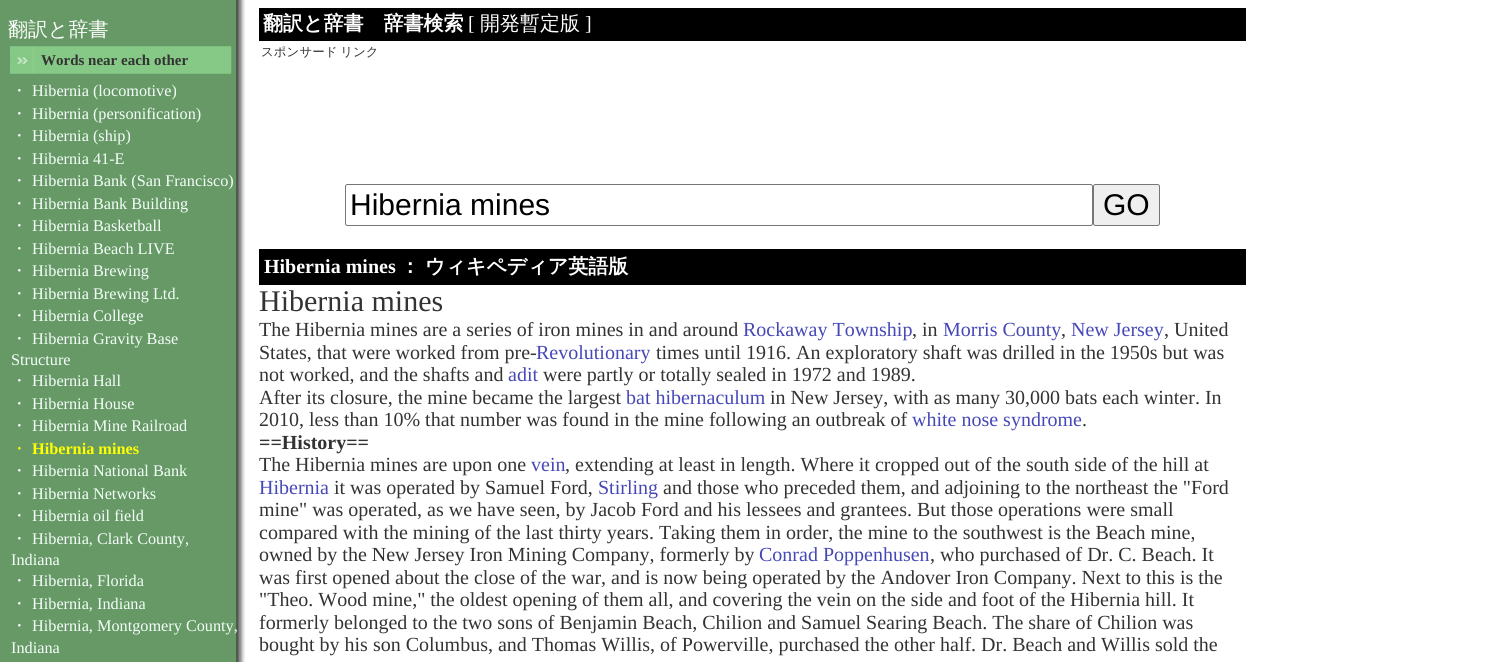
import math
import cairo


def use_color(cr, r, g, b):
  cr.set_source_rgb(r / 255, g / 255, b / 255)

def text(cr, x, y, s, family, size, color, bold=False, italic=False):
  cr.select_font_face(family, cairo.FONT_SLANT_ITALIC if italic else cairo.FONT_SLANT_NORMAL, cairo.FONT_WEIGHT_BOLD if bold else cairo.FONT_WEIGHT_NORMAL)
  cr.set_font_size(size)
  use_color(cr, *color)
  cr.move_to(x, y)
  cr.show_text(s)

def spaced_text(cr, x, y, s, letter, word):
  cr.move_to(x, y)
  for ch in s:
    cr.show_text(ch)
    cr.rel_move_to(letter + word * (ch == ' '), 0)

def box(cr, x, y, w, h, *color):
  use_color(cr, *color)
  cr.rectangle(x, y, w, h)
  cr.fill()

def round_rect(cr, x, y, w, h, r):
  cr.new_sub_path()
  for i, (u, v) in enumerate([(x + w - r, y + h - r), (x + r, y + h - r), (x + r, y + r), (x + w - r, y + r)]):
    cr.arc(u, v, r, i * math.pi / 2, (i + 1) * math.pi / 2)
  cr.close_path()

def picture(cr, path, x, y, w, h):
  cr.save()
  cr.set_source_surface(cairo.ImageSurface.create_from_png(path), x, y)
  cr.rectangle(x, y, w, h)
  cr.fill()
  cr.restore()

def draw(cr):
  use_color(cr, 255, 255, 255)
  cr.paint()
  picture(cr, "img_01.png", 0, 0, 245, 662)
  picture(cr, "img_02.png", 10, 46, 222, 28)
  box(cr, 259, 8, 987, 33, 0, 0, 0)
  round_rect(cr, 345.5, 184.5, 747, 41, 2)
  use_color(cr, 118, 118, 118)
  cr.set_line_width(1)
  cr.stroke()
  use_color(cr, 239, 239, 239)
  round_rect(cr, 1093.5, 184.5, 66, 41, 2)
  cr.fill_preserve()
  use_color(cr, 118, 118, 118)
  cr.stroke()
  box(cr, 259, 249, 987, 36, 0, 0, 0)
  text(cr, 8, 36, "翻訳と辞書", "WenQuanYi Zen Hei Medium", 20, (255, 255, 255))
  text(cr, 41, 65, "Words near each other", "Liberation Serif", 15, (51, 51, 51), bold=True)
  text(cr, 11, 96, "・", "WenQuanYi Zen Hei Medium", 16.25, (245, 255, 250))
  text(cr, 32, 96, "Hibernia (locomotive)", "Liberation Serif", 16.25, (245, 255, 250))
  text(cr, 11, 119, "・", "WenQuanYi Zen Hei Medium", 16.25, (245, 255, 250))
  text(cr, 32, 119, "Hibernia (personification)", "Liberation Serif", 16.25, (245, 255, 250))
  text(cr, 11, 141, "・", "WenQuanYi Zen Hei Medium", 16.25, (245, 255, 250))
  text(cr, 32, 141, "Hibernia (ship)", "Liberation Serif", 16.25, (245, 255, 250))
  text(cr, 11, 164, "・", "WenQuanYi Zen Hei Medium", 16.25, (245, 255, 250))
  text(cr, 32, 164, "Hibernia 41-E", "Liberation Serif", 16.25, (245, 255, 250))
  text(cr, 11, 186, "・", "WenQuanYi Zen Hei Medium", 16.25, (245, 255, 250))
  text(cr, 32, 186, "Hibernia Bank (San Francisco)", "Liberation Serif", 16.25, (245, 255, 250))
  text(cr, 11, 209, "・", "WenQuanYi Zen Hei Medium", 16.25, (245, 255, 250))
  text(cr, 32, 209, "Hibernia Bank Building", "Liberation Serif", 16.25, (245, 255, 250))
  text(cr, 11, 231, "・", "WenQuanYi Zen Hei Medium", 16.25, (245, 255, 250))
  text(cr, 32, 231, "Hibernia Basketball", "Liberation Serif", 16.25, (245, 255, 250))
  text(cr, 11, 254, "・", "WenQuanYi Zen Hei Medium", 16.25, (245, 255, 250))
  text(cr, 32, 254, "Hibernia Beach LIVE", "Liberation Serif", 16.25, (245, 255, 250))
  text(cr, 11, 276, "・", "WenQuanYi Zen Hei Medium", 16.25, (245, 255, 250))
  text(cr, 32, 276, "Hibernia Brewing", "Liberation Serif", 16.25, (245, 255, 250))
  text(cr, 11, 299, "・", "WenQuanYi Zen Hei Medium", 16.25, (245, 255, 250))
  text(cr, 32, 299, "Hibernia Brewing Ltd.", "Liberation Serif", 16.25, (245, 255, 250))
  text(cr, 11, 321, "・", "WenQuanYi Zen Hei Medium", 16.25, (245, 255, 250))
  text(cr, 32, 321, "Hibernia College", "Liberation Serif", 16.25, (245, 255, 250))
  text(cr, 11, 344, "・", "WenQuanYi Zen Hei Medium", 16.25, (245, 255, 250))
  text(cr, 32, 344, "Hibernia Gravity Base", "Liberation Serif", 16.25, (245, 255, 250))
  text(cr, 11, 365, "Structure", "Liberation Serif", 16.25, (245, 255, 250))
  text(cr, 11, 386, "・", "WenQuanYi Zen Hei Medium", 16.25, (245, 255, 250))
  text(cr, 32, 386, "Hibernia Hall", "Liberation Serif", 16.25, (245, 255, 250))
  text(cr, 11, 409, "・", "WenQuanYi Zen Hei Medium", 16.25, (245, 255, 250))
  text(cr, 32, 409, "Hibernia House", "Liberation Serif", 16.25, (245, 255, 250))
  text(cr, 11, 431, "・", "WenQuanYi Zen Hei Medium", 16.25, (245, 255, 250))
  text(cr, 32, 431, "Hibernia Mine Railroad", "Liberation Serif", 16.25, (245, 255, 250))
  text(cr, 11, 454, "・", "WenQuanYi Zen Hei Medium", 16.25, (255, 255, 0))
  text(cr, 32, 454, "Hibernia mines", "Liberation Serif", 16.25, (255, 255, 0), bold=True)
  text(cr, 11, 476, "・", "WenQuanYi Zen Hei Medium", 16.25, (245, 255, 250))
  text(cr, 32, 476, "Hibernia National Bank", "Liberation Serif", 16.25, (245, 255, 250))
  text(cr, 11, 499, "・", "WenQuanYi Zen Hei Medium", 16.25, (245, 255, 250))
  text(cr, 32, 499, "Hibernia Networks", "Liberation Serif", 16.25, (245, 255, 250))
  text(cr, 11, 521, "・", "WenQuanYi Zen Hei Medium", 16.25, (245, 255, 250))
  text(cr, 32, 521, "Hibernia oil field", "Liberation Serif", 16.25, (245, 255, 250))
  text(cr, 11, 544, "・", "WenQuanYi Zen Hei Medium", 16.25, (245, 255, 250))
  text(cr, 32, 544, "Hibernia, Clark County,", "Liberation Serif", 16.25, (245, 255, 250))
  text(cr, 11, 565, "Indiana", "Liberation Serif", 16.25, (245, 255, 250))
  text(cr, 11, 586, "・", "WenQuanYi Zen Hei Medium", 16.25, (245, 255, 250))
  text(cr, 32, 586, "Hibernia, Florida", "Liberation Serif", 16.25, (245, 255, 250))
  text(cr, 11, 609, "・", "WenQuanYi Zen Hei Medium", 16.25, (245, 255, 250))
  text(cr, 32, 609, "Hibernia, Indiana", "Liberation Serif", 16.25, (245, 255, 250))
  text(cr, 11, 631, "・", "WenQuanYi Zen Hei Medium", 16.25, (245, 255, 250))
  text(cr, 32, 631, "Hibernia, Montgomery County,", "Liberation Serif", 16.25, (245, 255, 250))
  text(cr, 11, 653, "Indiana", "Liberation Serif", 16.25, (245, 255, 250))
  text(cr, 263, 30, "翻訳と辞書　辞書検索", "WenQuanYi Zen Hei", 20, (255, 255, 255), bold=True)
  text(cr, 468, 30, "[", "Liberation Serif", 20, (255, 255, 255))
  text(cr, 480, 30, "開発暫定版", "WenQuanYi Zen Hei Medium", 20, (255, 255, 255))
  text(cr, 585, 30, "]", "Liberation Serif", 20, (255, 255, 255))
  cr.select_font_face("WenQuanYi Zen Hei Medium")
  cr.set_font_size(12.5)
  use_color(cr, 51, 51, 51)
  spaced_text(cr, 261, 56, "スポンサード リンク", 0, -1)
  text(cr, 350, 215, "Hibernia mines", "Liberation Sans", 30, (0, 0, 0))
  text(cr, 1103, 215, "GO", "Liberation Sans", 30, (0, 0, 0))
  text(cr, 264, 273, "Hibernia mines", "Liberation Serif", 20, (255, 255, 255), bold=True)
  cr.select_font_face("WenQuanYi Zen Hei", cairo.FONT_SLANT_NORMAL, cairo.FONT_WEIGHT_BOLD)
  spaced_text(cr, 400, 273, "： ウィキペディア英語版", 0, -1)
  text(cr, 259, 311, "Hibernia mines", "Liberation Serif", 30, (51, 51, 51))
  text(cr, 259, 336, "The Hibernia mines are a series of iron mines in and around", "Liberation Serif", 20, (51, 51, 51))
  text(cr, 743, 336, "Rockaway Township", "Liberation Serif", 20, (70, 72, 183))
  text(cr, 912, 336, ", in", "Liberation Serif", 20, (51, 51, 51))
  text(cr, 943, 336, "Morris County", "Liberation Serif", 20, (70, 72, 183))
  text(cr, 1061, 336, ",", "Liberation Serif", 20, (51, 51, 51))
  text(cr, 1071, 336, "New Jersey", "Liberation Serif", 20, (70, 72, 183))
  text(cr, 1164, 336, ", United", "Liberation Serif", 20, (51, 51, 51))
  text(cr, 259, 359, "States, that were worked from pre-", "Liberation Serif", 20, (51, 51, 51))
  text(cr, 536, 359, "Revolutionary", "Liberation Serif", 20, (70, 72, 183))
  text(cr, 656, 359, "times until 1916. An exploratory shaft was drilled in the 1950s but was", "Liberation Serif", 20, (51, 51, 51))
  text(cr, 259, 381, "not worked, and the shafts and", "Liberation Serif", 20, (51, 51, 51))
  text(cr, 508, 381, "adit", "Liberation Serif", 20, (70, 72, 183))
  text(cr, 543, 381, "were partly or totally sealed in 1972 and 1989.", "Liberation Serif", 20, (51, 51, 51))
  text(cr, 259, 404, "After its closure, the mine became the largest", "Liberation Serif", 20, (51, 51, 51))
  text(cr, 626, 404, "bat hibernaculum", "Liberation Serif", 20, (70, 72, 183))
  text(cr, 770, 404, "in New Jersey, with as many 30,000 bats each winter. In", "Liberation Serif", 20, (51, 51, 51))
  text(cr, 259, 426, "2010, less than 10% that number was found in the mine following an outbreak of", "Liberation Serif", 20, (51, 51, 51))
  text(cr, 912, 426, "white nose syndrome", "Liberation Serif", 20, (70, 72, 183))
  text(cr, 1082, 426, ".", "Liberation Serif", 20, (51, 51, 51))
  text(cr, 259, 449, "==History==", "Liberation Serif", 20, (51, 51, 51), bold=True)
  text(cr, 259, 471, "The Hibernia mines are upon one", "Liberation Serif", 20, (51, 51, 51))
  text(cr, 531, 471, "vein", "Liberation Serif", 20, (70, 72, 183))
  text(cr, 565, 471, ", extending at least in length. Where it cropped out of the south side of the hill at", "Liberation Serif", 20, (51, 51, 51))
  text(cr, 259, 494, "Hibernia", "Liberation Serif", 20, (70, 72, 183))
  text(cr, 334, 494, "it was operated by Samuel Ford,", "Liberation Serif", 20, (51, 51, 51))
  text(cr, 598, 494, "Stirling", "Liberation Serif", 20, (70, 72, 183))
  text(cr, 663, 494, "and those who preceded them, and adjoining to the northeast the \"Ford", "Liberation Serif", 20, (51, 51, 51))
  text(cr, 259, 516, "mine\" was operated, as we have seen, by Jacob Ford and his lessees and grantees. But those operations were small", "Liberation Serif", 20, (51, 51, 51))
  text(cr, 259, 539, "compared with the mining of the last thirty years. Taking them in order, the mine to the southwest is the Beach mine,", "Liberation Serif", 20, (51, 51, 51))
  text(cr, 259, 561, "owned by the New Jersey Iron Mining Company, formerly by", "Liberation Serif", 20, (51, 51, 51))
  text(cr, 759, 561, "Conrad Poppenhusen", "Liberation Serif", 20, (70, 72, 183))
  text(cr, 930, 561, ", who purchased of Dr. C. Beach. It", "Liberation Serif", 20, (51, 51, 51))
  text(cr, 259, 584, "was first opened about the close of the war, and is now being operated by the Andover Iron Company. Next to this is the", "Liberation Serif", 20, (51, 51, 51))
  text(cr, 259, 606, "\"Theo. Wood mine,\" the oldest opening of them all, and covering the vein on the side and foot of the Hibernia hill. It", "Liberation Serif", 20, (51, 51, 51))
  text(cr, 259, 629, "formerly belonged to the two sons of Benjamin Beach, Chilion and Samuel Searing Beach. The share of Chilion was", "Liberation Serif", 20, (51, 51, 51))
  text(cr, 259, 651, "bought by his son Columbus, and Thomas Willis, of Powerville, purchased the other half. Dr. Beach and Willis sold the", "Liberation Serif", 20, (51, 51, 51))


surface = cairo.ImageSurface(cairo.FORMAT_RGB24, 1508, 662)
cr = cairo.Context(surface)
options = cairo.FontOptions()
options.set_hint_metrics(cairo.HINT_METRICS_OFF)
options.set_hint_style(cairo.HINT_STYLE_NONE)
cr.set_font_options(options)
cr.set_miter_limit(4)
draw(cr)
surface.write_to_png("out.png")
